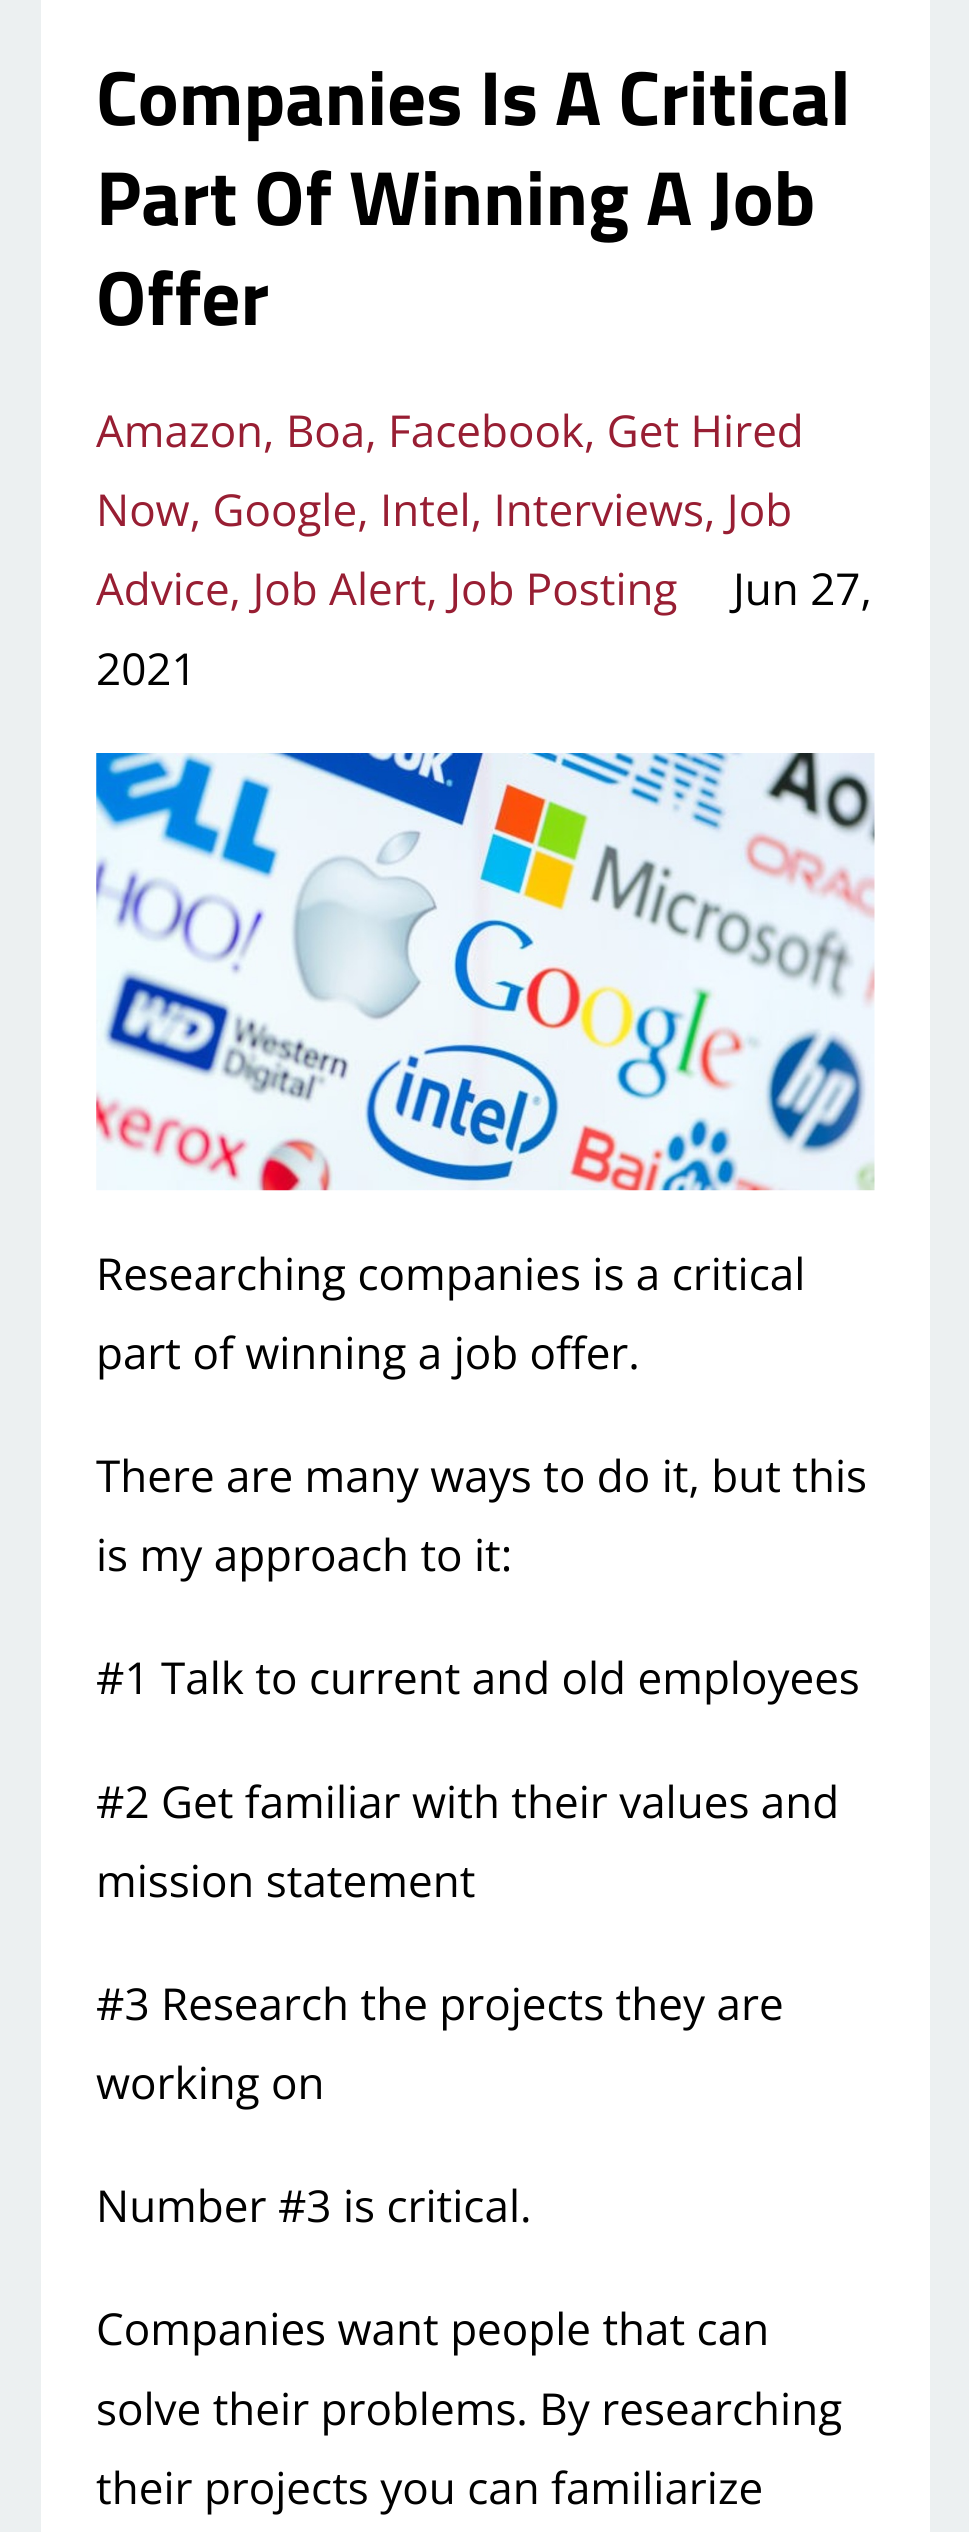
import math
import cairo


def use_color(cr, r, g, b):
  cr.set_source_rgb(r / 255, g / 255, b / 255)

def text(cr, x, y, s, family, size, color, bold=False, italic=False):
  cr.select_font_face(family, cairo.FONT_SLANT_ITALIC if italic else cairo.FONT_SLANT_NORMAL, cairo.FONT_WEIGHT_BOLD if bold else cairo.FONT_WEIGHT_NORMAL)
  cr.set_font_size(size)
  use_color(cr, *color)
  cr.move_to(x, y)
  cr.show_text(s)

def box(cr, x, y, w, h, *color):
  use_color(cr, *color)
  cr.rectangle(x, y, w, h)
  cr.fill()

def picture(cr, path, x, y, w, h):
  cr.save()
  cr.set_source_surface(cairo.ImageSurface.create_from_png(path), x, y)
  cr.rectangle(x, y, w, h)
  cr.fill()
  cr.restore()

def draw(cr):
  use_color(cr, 236, 240, 241)
  cr.paint()
  box(cr, 41, 0, 889, 2532, 255, 255, 255)
  picture(cr, "img_01.png", 96, 753, 779, 438)
  text(cr, 96, 125, "Companies Is A Critical", "Titillium Web", 77, (0, 0, 0), bold=True)
  text(cr, 96, 225, "Part Of Winning A Job", "Titillium Web", 77, (0, 0, 0), bold=True)
  text(cr, 96, 325, "Offer", "Titillium Web", 77, (0, 0, 0), bold=True)
  text(cr, 96, 447, "Amazon, Boa, Facebook, Get Hired", "Open Sans", 44, (152, 30, 51))
  text(cr, 96, 526, "Now, Google, Intel, Interviews, Job", "Open Sans", 44, (152, 30, 51))
  text(cr, 96, 605, "Advice, Job Alert, Job Posting", "Open Sans", 44, (152, 30, 51))
  text(cr, 733, 605, "Jun 27,", "Open Sans", 44, (0, 0, 0))
  text(cr, 96, 685, "2021", "Open Sans", 44, (0, 0, 0))
  text(cr, 96, 1290, "Researching companies is a critical", "Open Sans", 44, (0, 0, 0))
  text(cr, 96, 1369, "part of winning a job offer.", "Open Sans", 44, (0, 0, 0))
  text(cr, 96, 1492, "There are many ways to do it, but this", "Open Sans", 44, (0, 0, 0))
  text(cr, 96, 1571, "is my approach to it:", "Open Sans", 44, (0, 0, 0))
  text(cr, 96, 1694, "#1 Talk to current and old employees", "Open Sans", 44, (0, 0, 0))
  text(cr, 96, 1818, "#2 Get familiar with their values and", "Open Sans", 44, (0, 0, 0))
  text(cr, 96, 1897, "mission statement", "Open Sans", 44, (0, 0, 0))
  text(cr, 96, 2020, "#3 Research the projects they are", "Open Sans", 44, (0, 0, 0))
  text(cr, 96, 2099, "working on", "Open Sans", 44, (0, 0, 0))
  text(cr, 96, 2222, "Number #3 is critical.", "Open Sans", 44, (0, 0, 0))
  text(cr, 96, 2345, "Companies want people that can", "Open Sans", 44, (0, 0, 0))
  text(cr, 96, 2425, "solve their problems. By researching", "Open Sans", 44, (0, 0, 0))
  text(cr, 96, 2504, "their projects you can familiarize", "Open Sans", 44, (0, 0, 0))


surface = cairo.ImageSurface(cairo.FORMAT_RGB24, 969, 2532)
cr = cairo.Context(surface)
options = cairo.FontOptions()
options.set_hint_metrics(cairo.HINT_METRICS_OFF)
options.set_hint_style(cairo.HINT_STYLE_NONE)
cr.set_font_options(options)
cr.set_miter_limit(4)
draw(cr)
surface.write_to_png("out.png")
